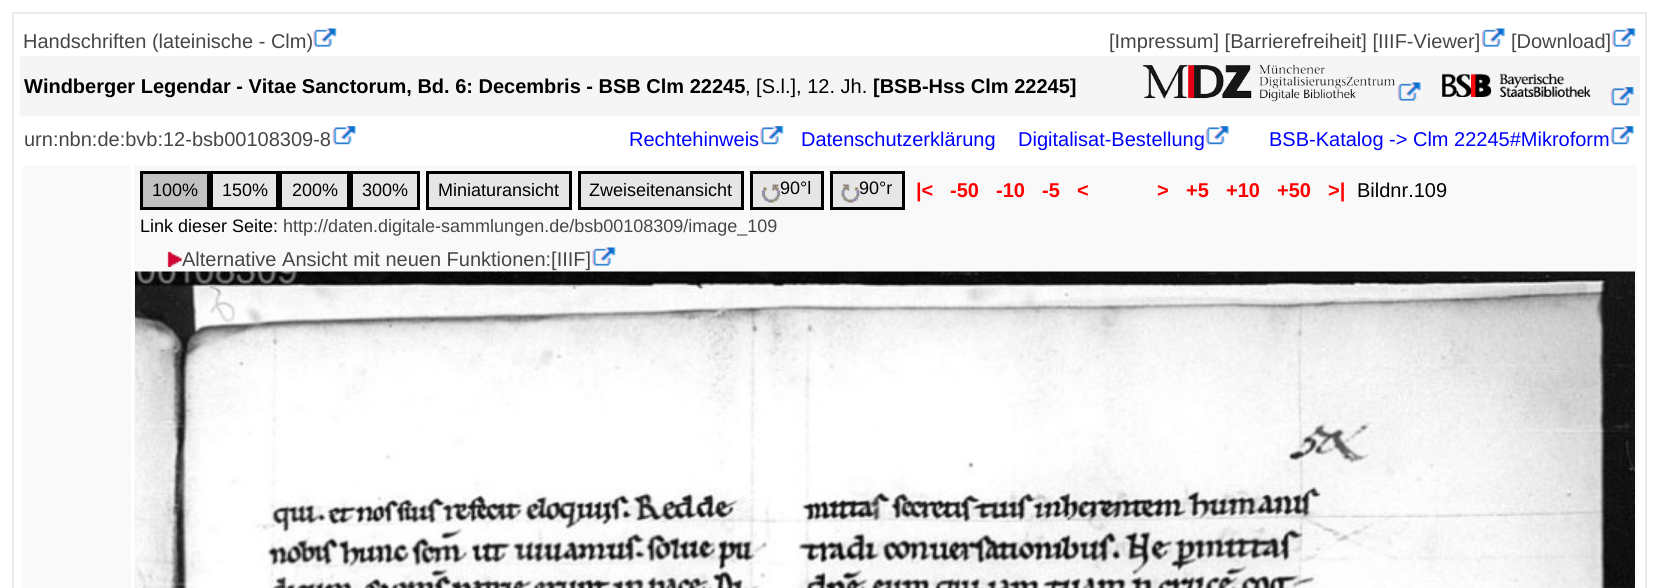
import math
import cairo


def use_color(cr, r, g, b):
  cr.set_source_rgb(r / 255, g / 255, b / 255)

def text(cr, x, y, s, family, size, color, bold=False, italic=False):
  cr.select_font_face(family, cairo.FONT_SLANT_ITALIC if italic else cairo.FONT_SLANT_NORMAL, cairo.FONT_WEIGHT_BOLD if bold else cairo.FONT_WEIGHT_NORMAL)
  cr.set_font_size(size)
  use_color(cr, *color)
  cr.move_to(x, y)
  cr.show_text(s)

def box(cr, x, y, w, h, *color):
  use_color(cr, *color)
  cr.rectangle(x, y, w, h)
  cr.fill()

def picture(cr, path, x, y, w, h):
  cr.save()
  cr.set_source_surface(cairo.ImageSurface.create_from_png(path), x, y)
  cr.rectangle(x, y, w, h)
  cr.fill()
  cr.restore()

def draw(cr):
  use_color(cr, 255, 255, 255)
  cr.paint()
  cr.rectangle(13, 13, 1633, 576)
  use_color(cr, 235, 235, 235)
  cr.stroke()
  picture(cr, "img_01.png", 313, 28, 24, 19)
  picture(cr, "img_02.png", 1481, 28, 24, 19)
  picture(cr, "img_03.png", 1612, 28, 24, 19)
  box(cr, 20, 56, 1620, 60, 245, 245, 245)
  picture(cr, "img_04.png", 1143, 64, 252, 38)
  picture(cr, "img_05.png", 1397, 82, 24, 19)
  picture(cr, "img_06.png", 1442, 73, 149, 24)
  picture(cr, "img_07.png", 1610, 87, 24, 19)
  picture(cr, "img_08.png", 332, 126, 24, 19)
  picture(cr, "img_09.png", 760, 126, 24, 19)
  picture(cr, "img_10.png", 1205, 126, 24, 19)
  picture(cr, "img_08.png", 1610, 126, 24, 19)
  box(cr, 23, 165, 108, 423, 249, 249, 249)
  box(cr, 134, 165, 1503, 423, 249, 249, 249)
  use_color(cr, 193, 193, 193)
  cr.rectangle(141.5, 172.5, 67, 36)
  cr.fill_preserve()
  use_color(cr, 0, 0, 0)
  cr.set_line_width(3)
  cr.stroke()
  use_color(cr, 230, 230, 230)
  cr.rectangle(211.5, 172.5, 66, 36)
  cr.fill_preserve()
  use_color(cr, 0, 0, 0)
  cr.stroke()
  use_color(cr, 230, 230, 230)
  cr.rectangle(280.5, 172.5, 68, 36)
  cr.fill_preserve()
  use_color(cr, 0, 0, 0)
  cr.stroke()
  use_color(cr, 230, 230, 230)
  cr.rectangle(351.5, 172.5, 67, 36)
  cr.fill_preserve()
  use_color(cr, 0, 0, 0)
  cr.stroke()
  use_color(cr, 230, 230, 230)
  cr.rectangle(427.5, 172.5, 143, 36)
  cr.fill_preserve()
  use_color(cr, 0, 0, 0)
  cr.stroke()
  use_color(cr, 230, 230, 230)
  cr.rectangle(579.5, 172.5, 163, 36)
  cr.fill_preserve()
  use_color(cr, 0, 0, 0)
  cr.stroke()
  use_color(cr, 230, 230, 230)
  cr.rectangle(751.5, 172.5, 71, 36)
  cr.fill_preserve()
  use_color(cr, 0, 0, 0)
  cr.stroke()
  picture(cr, "img_11.png", 762, 184, 18, 19)
  use_color(cr, 230, 230, 230)
  cr.rectangle(831.5, 172.5, 72, 36)
  cr.fill_preserve()
  use_color(cr, 0, 0, 0)
  cr.stroke()
  picture(cr, "img_12.png", 841, 184, 19, 19)
  picture(cr, "img_13.png", 167, 251, 15, 16)
  picture(cr, "img_14.png", 592, 247, 24, 19)
  picture(cr, "img_15.png", 135, 271, 1500, 317)
  text(cr, 23, 48, "Handschriften (lateinische - Clm)", "Liberation Sans", 20, (70, 70, 70))
  text(cr, 1109, 48, "[Impressum] [Barrierefreiheit] [IIIF-Viewer]", "Liberation Sans", 20, (70, 70, 70))
  text(cr, 1511, 48, "[Download]", "Liberation Sans", 20, (70, 70, 70))
  text(cr, 24, 93, "Windberger Legendar - Vitae Sanctorum, Bd. 6: Decembris - BSB Clm 22245", "Liberation Sans", 20, (0, 0, 0), bold=True)
  text(cr, 745, 93, ", [S.l.], 12. Jh.", "Liberation Sans", 20, (0, 0, 0))
  text(cr, 873, 93, "[BSB-Hss Clm 22245]", "Liberation Sans", 20, (0, 0, 0), bold=True)
  text(cr, 24, 146, "urn:nbn:de:bvb:12-bsb00108309-8", "Liberation Sans", 20, (70, 70, 70))
  text(cr, 629, 146, "Rechtehinweis", "Liberation Sans", 20, (0, 0, 255))
  text(cr, 801, 146, "Datenschutzerklärung", "Liberation Sans", 20, (0, 0, 255))
  text(cr, 1018, 146, "Digitalisat-Bestellung", "Liberation Sans", 20, (0, 0, 255))
  text(cr, 1269, 146, "BSB-Katalog -> Clm 22245#Mikroform", "Liberation Sans", 20, (0, 0, 255))
  text(cr, 152, 196, "100%", "Liberation Sans", 18, (0, 0, 0))
  text(cr, 222, 196, "150%", "Liberation Sans", 18, (0, 0, 0))
  text(cr, 292, 196, "200%", "Liberation Sans", 18, (0, 0, 0))
  text(cr, 362, 196, "300%", "Liberation Sans", 18, (0, 0, 0))
  text(cr, 438, 196, "Miniaturansicht", "Liberation Sans", 18, (0, 0, 0))
  text(cr, 589, 196, "Zweiseitenansicht", "Liberation Sans", 18, (0, 0, 0))
  text(cr, 780, 194, "90°l", "Liberation Sans", 18, (0, 0, 0))
  text(cr, 859, 194, "90°r", "Liberation Sans", 18, (0, 0, 0))
  text(cr, 916, 197, "|<", "Liberation Sans", 20, (255, 0, 0), bold=True)
  text(cr, 950, 197, "-50", "Liberation Sans", 20, (255, 0, 0), bold=True)
  text(cr, 996, 197, "-10", "Liberation Sans", 20, (255, 0, 0), bold=True)
  text(cr, 1042, 197, "-5", "Liberation Sans", 20, (255, 0, 0), bold=True)
  text(cr, 1077, 197, "<", "Liberation Sans", 20, (255, 0, 0), bold=True)
  text(cr, 1157, 197, ">", "Liberation Sans", 20, (255, 0, 0), bold=True)
  text(cr, 1186, 197, "+5", "Liberation Sans", 20, (255, 0, 0), bold=True)
  text(cr, 1226, 197, "+10", "Liberation Sans", 20, (255, 0, 0), bold=True)
  text(cr, 1277, 197, "+50", "Liberation Sans", 20, (255, 0, 0), bold=True)
  text(cr, 1328, 197, ">|", "Liberation Sans", 20, (255, 0, 0), bold=True)
  text(cr, 1357, 197, "Bildnr.109", "Liberation Sans", 20, (0, 0, 0))
  text(cr, 140, 232, "Link dieser Seite:", "Liberation Sans", 18, (0, 0, 0))
  text(cr, 283, 232, "http://daten.digitale-sammlungen.de/bsb00108309/image_109", "Liberation Sans", 18, (70, 70, 70))
  text(cr, 182, 266, "Alternative Ansicht mit neuen Funktionen:[IIIF]", "Liberation Sans", 20, (70, 70, 70))


surface = cairo.ImageSurface(cairo.FORMAT_RGB24, 1658, 588)
cr = cairo.Context(surface)
options = cairo.FontOptions()
options.set_hint_metrics(cairo.HINT_METRICS_OFF)
options.set_hint_style(cairo.HINT_STYLE_NONE)
cr.set_font_options(options)
cr.set_miter_limit(4)
draw(cr)
surface.write_to_png("out.png")
